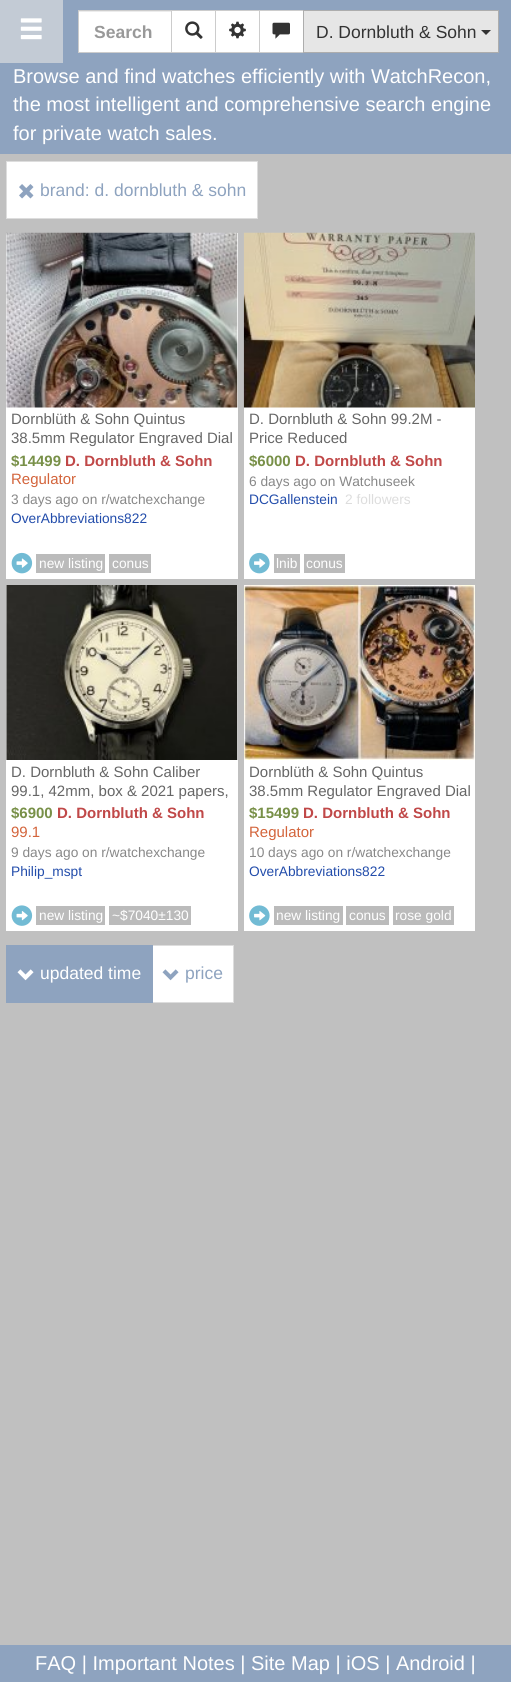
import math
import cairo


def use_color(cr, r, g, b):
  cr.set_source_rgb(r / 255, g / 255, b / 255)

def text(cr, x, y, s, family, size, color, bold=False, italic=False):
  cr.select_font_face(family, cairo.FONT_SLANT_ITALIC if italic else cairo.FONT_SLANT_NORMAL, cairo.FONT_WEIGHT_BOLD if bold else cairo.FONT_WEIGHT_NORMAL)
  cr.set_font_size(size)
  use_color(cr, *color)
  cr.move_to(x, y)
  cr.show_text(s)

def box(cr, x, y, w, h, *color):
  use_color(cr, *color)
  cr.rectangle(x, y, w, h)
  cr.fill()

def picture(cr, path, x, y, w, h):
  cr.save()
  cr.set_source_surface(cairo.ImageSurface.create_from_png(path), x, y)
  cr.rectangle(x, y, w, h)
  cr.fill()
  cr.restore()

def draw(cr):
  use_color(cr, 192, 192, 192)
  cr.paint()
  box(cr, 63, 0, 448, 63, 142, 163, 191)
  box(cr, 0, 0, 63, 63, 195, 203, 213)
  picture(cr, "img_01.png", 20, 18, 22, 22)
  box(cr, 79, 12, 92, 40, 255, 255, 255)
  box(cr, 79, 11, 92, 1, 236, 236, 236)
  cr.rectangle(78.5, 10.5, 94, 42)
  use_color(cr, 204, 204, 204)
  cr.set_line_width(1)
  cr.stroke()
  use_color(cr, 255, 255, 255)
  cr.rectangle(171.5, 10.5, 44, 42)
  cr.fill_preserve()
  use_color(cr, 204, 204, 204)
  cr.stroke()
  picture(cr, "img_02.png", 185, 21, 18, 18)
  use_color(cr, 255, 255, 255)
  cr.rectangle(215.5, 10.5, 44, 42)
  cr.fill_preserve()
  use_color(cr, 204, 204, 204)
  cr.stroke()
  picture(cr, "img_03.png", 229, 21, 17, 18)
  use_color(cr, 255, 255, 255)
  cr.rectangle(259.5, 10.5, 44, 42)
  cr.fill_preserve()
  use_color(cr, 204, 204, 204)
  cr.stroke()
  picture(cr, "img_04.png", 272, 22, 18, 17)
  use_color(cr, 230, 230, 230)
  cr.rectangle(303.5, 10.5, 195, 42)
  cr.fill_preserve()
  use_color(cr, 173, 173, 173)
  cr.stroke()
  use_color(cr, 51, 51, 51)
  cr.new_path()
  cr.move_to(481, 30)
  cr.line_to(491, 30)
  cr.line_to(486, 35)
  cr.close_path()
  cr.fill()
  box(cr, 0, 63, 511, 91, 142, 163, 191)
  use_color(cr, 255, 255, 255)
  cr.rectangle(6.5, 161.5, 251, 57)
  cr.fill_preserve()
  use_color(cr, 221, 221, 221)
  cr.stroke()
  picture(cr, "img_05.png", 19, 184, 15, 15)
  box(cr, 6, 233, 232, 346, 255, 255, 255)
  picture(cr, "img_06.png", 6, 232, 232, 176)
  picture(cr, "img_07.png", 11, 552, 22, 22)
  box(cr, 36, 554, 69, 19, 187, 187, 187)
  box(cr, 109, 554, 42, 19, 187, 187, 187)
  box(cr, 244, 407, 231, 172, 255, 255, 255)
  picture(cr, "img_08.png", 243, 232, 232, 176)
  picture(cr, "img_09.png", 249, 552, 21, 22)
  box(cr, 274, 554, 26, 19, 187, 187, 187)
  box(cr, 304, 554, 41, 19, 187, 187, 187)
  box(cr, 6, 585, 232, 346, 255, 255, 255)
  picture(cr, "img_10.png", 6, 585, 232, 175)
  picture(cr, "img_11.png", 11, 905, 22, 21)
  box(cr, 36, 906, 69, 19, 187, 187, 187)
  box(cr, 109, 906, 82, 19, 187, 187, 187)
  box(cr, 244, 760, 231, 171, 255, 255, 255)
  picture(cr, "img_12.png", 244, 585, 231, 175)
  picture(cr, "img_13.png", 249, 905, 21, 21)
  box(cr, 274, 906, 69, 19, 187, 187, 187)
  box(cr, 346, 906, 43, 19, 187, 187, 187)
  box(cr, 393, 906, 61, 19, 187, 187, 187)
  box(cr, 153, 946, 80, 56, 255, 255, 255)
  cr.rectangle(151.5, 945.5, 82, 57)
  use_color(cr, 221, 221, 221)
  cr.stroke()
  box(cr, 6, 945, 147, 58, 142, 163, 191)
  picture(cr, "img_14.png", 17, 969, 17, 12)
  picture(cr, "img_15.png", 162, 969, 17, 12)
  box(cr, 0, 1645, 511, 37, 142, 163, 191)
  text(cr, 94, 38, "Search", "Liberation Sans", 17.5, (153, 153, 153), bold=True)
  text(cr, 316, 38, "D. Dornbluth & Sohn", "Liberation Sans", 17.5, (51, 51, 51))
  text(cr, 13, 83, "Browse and find watches efficiently with WatchRecon,", "Liberation Sans", 20, (255, 255, 255))
  text(cr, 13, 111, "the most intelligent and comprehensive search engine", "Liberation Sans", 20, (255, 255, 255))
  text(cr, 13, 140, "for private watch sales.", "Liberation Sans", 20, (255, 255, 255))
  text(cr, 40, 196, "brand: d. dornbluth & sohn", "Liberation Sans", 17.5, (142, 163, 191))
  text(cr, 11, 424, "Dornblüth & Sohn Quintus", "Liberation Sans", 15, (102, 102, 102))
  text(cr, 11, 443, "38.5mm Regulator Engraved Dial", "Liberation Sans", 15, (102, 102, 102))
  text(cr, 11, 466, "$14499", "Liberation Sans", 15, (120, 144, 72), bold=True)
  text(cr, 65, 466, "D. Dornbluth & Sohn", "Liberation Sans", 15, (192, 72, 72), bold=True)
  text(cr, 11, 484, "Regulator", "Liberation Sans", 15, (211, 100, 59))
  text(cr, 11, 504, "3 days ago on r/watchexchange", "Liberation Sans", 13.75, (136, 136, 136))
  text(cr, 11, 523, "OverAbbreviations822", "Liberation Sans", 13.75, (35, 77, 171))
  text(cr, 39, 568, "new listing", "Liberation Sans", 13.75, (255, 255, 255))
  text(cr, 112, 568, "conus", "Liberation Sans", 13.75, (255, 255, 255))
  text(cr, 249, 424, "D. Dornbluth & Sohn 99.2M -", "Liberation Sans", 15, (102, 102, 102))
  text(cr, 249, 443, "Price Reduced", "Liberation Sans", 15, (102, 102, 102))
  text(cr, 249, 466, "$6000", "Liberation Sans", 15, (120, 144, 72), bold=True)
  text(cr, 295, 466, "D. Dornbluth & Sohn", "Liberation Sans", 15, (192, 72, 72), bold=True)
  text(cr, 249, 486, "6 days ago on Watchuseek", "Liberation Sans", 13.75, (136, 136, 136))
  text(cr, 249, 504, "DCGallenstein", "Liberation Sans", 13.75, (35, 77, 171))
  text(cr, 345, 504, "2 followers", "Liberation Sans", 13.75, (221, 221, 221))
  text(cr, 276, 568, "lnib", "Liberation Sans", 13.75, (255, 255, 255))
  text(cr, 306, 568, "conus", "Liberation Sans", 13.75, (255, 255, 255))
  text(cr, 11, 777, "D. Dornbluth & Sohn Caliber", "Liberation Sans", 15, (102, 102, 102))
  text(cr, 11, 796, "99.1, 42mm, box & 2021 papers,", "Liberation Sans", 15, (102, 102, 102))
  text(cr, 11, 818, "$6900", "Liberation Sans", 15, (120, 144, 72), bold=True)
  text(cr, 57, 818, "D. Dornbluth & Sohn", "Liberation Sans", 15, (192, 72, 72), bold=True)
  text(cr, 11, 837, "99.1", "Liberation Sans", 15, (211, 100, 59))
  text(cr, 11, 857, "9 days ago on r/watchexchange", "Liberation Sans", 13.75, (136, 136, 136))
  text(cr, 11, 876, "Philip_mspt", "Liberation Sans", 13.75, (35, 77, 171))
  text(cr, 39, 920, "new listing", "Liberation Sans", 13.75, (255, 255, 255))
  text(cr, 112, 920, "~$7040±130", "Liberation Sans", 13.75, (255, 255, 255))
  text(cr, 249, 777, "Dornblüth & Sohn Quintus", "Liberation Sans", 15, (102, 102, 102))
  text(cr, 249, 796, "38.5mm Regulator Engraved Dial", "Liberation Sans", 15, (102, 102, 102))
  text(cr, 249, 818, "$15499", "Liberation Sans", 15, (120, 144, 72), bold=True)
  text(cr, 303, 818, "D. Dornbluth & Sohn", "Liberation Sans", 15, (192, 72, 72), bold=True)
  text(cr, 249, 837, "Regulator", "Liberation Sans", 15, (211, 100, 59))
  text(cr, 249, 857, "10 days ago on r/watchexchange", "Liberation Sans", 13.75, (136, 136, 136))
  text(cr, 249, 876, "OverAbbreviations822", "Liberation Sans", 13.75, (35, 77, 171))
  text(cr, 276, 920, "new listing", "Liberation Sans", 13.75, (255, 255, 255))
  text(cr, 349, 920, "conus", "Liberation Sans", 13.75, (255, 255, 255))
  text(cr, 395, 920, "rose gold", "Liberation Sans", 13.75, (255, 255, 255))
  text(cr, 40, 979, "updated time", "Liberation Sans", 17.5, (255, 255, 255))
  text(cr, 185, 979, "price", "Liberation Sans", 17.5, (142, 163, 191))
  text(cr, 35, 1670, "FAQ | Important Notes | Site Map | iOS | Android |", "Liberation Sans", 20, (255, 255, 255))


surface = cairo.ImageSurface(cairo.FORMAT_RGB24, 511, 1682)
cr = cairo.Context(surface)
options = cairo.FontOptions()
options.set_hint_metrics(cairo.HINT_METRICS_OFF)
options.set_hint_style(cairo.HINT_STYLE_NONE)
cr.set_font_options(options)
cr.set_miter_limit(4)
draw(cr)
surface.write_to_png("out.png")
